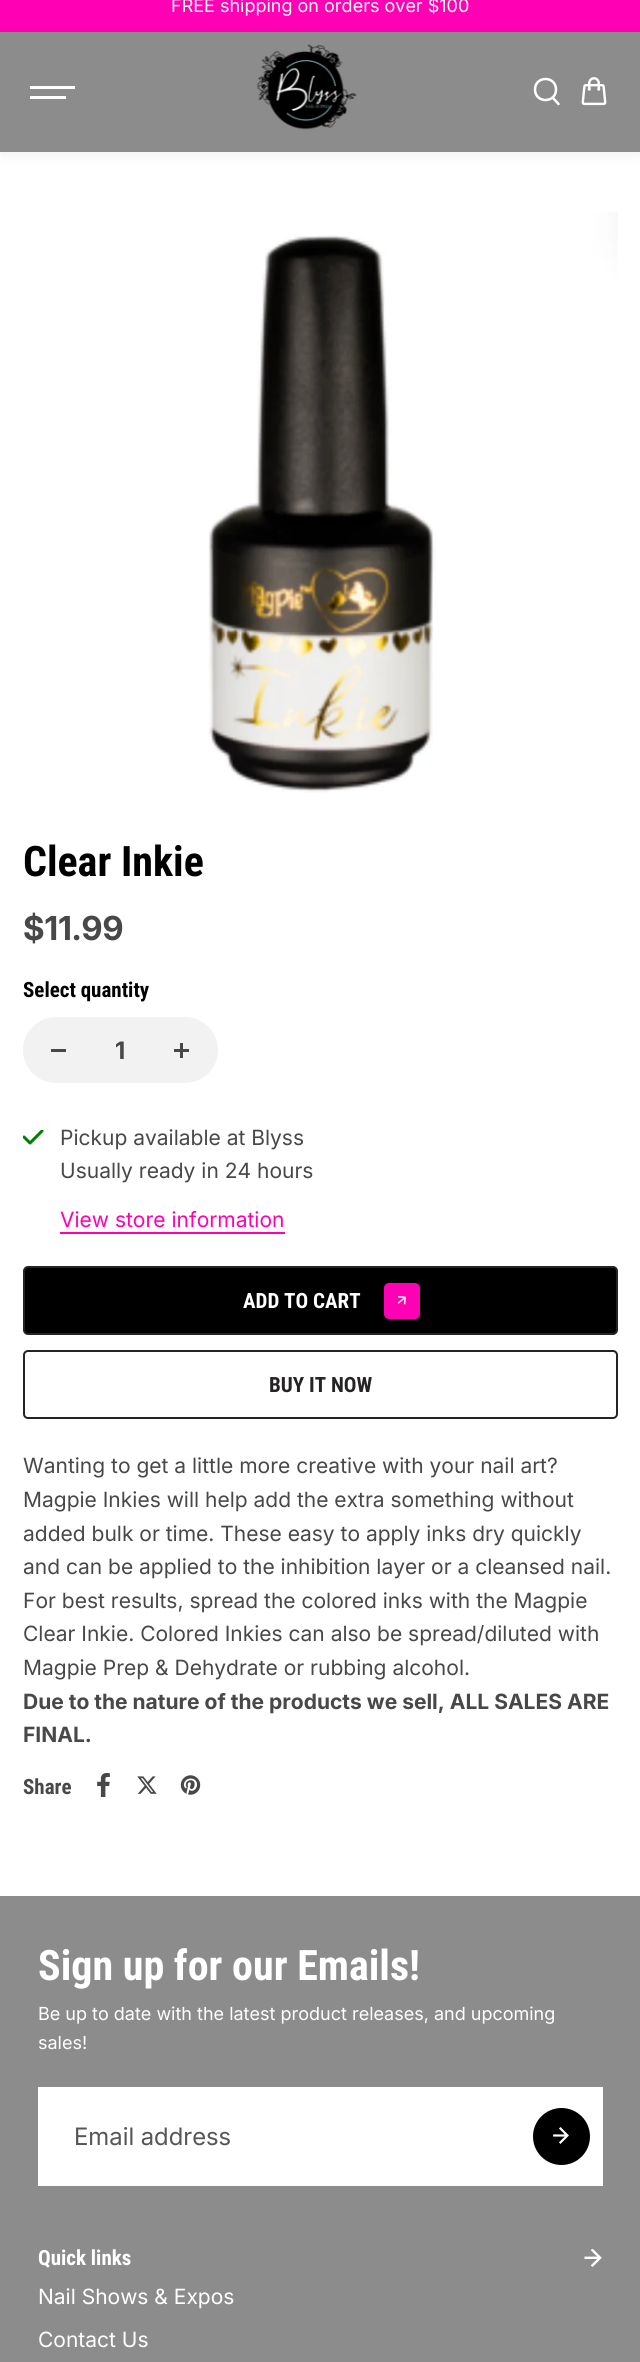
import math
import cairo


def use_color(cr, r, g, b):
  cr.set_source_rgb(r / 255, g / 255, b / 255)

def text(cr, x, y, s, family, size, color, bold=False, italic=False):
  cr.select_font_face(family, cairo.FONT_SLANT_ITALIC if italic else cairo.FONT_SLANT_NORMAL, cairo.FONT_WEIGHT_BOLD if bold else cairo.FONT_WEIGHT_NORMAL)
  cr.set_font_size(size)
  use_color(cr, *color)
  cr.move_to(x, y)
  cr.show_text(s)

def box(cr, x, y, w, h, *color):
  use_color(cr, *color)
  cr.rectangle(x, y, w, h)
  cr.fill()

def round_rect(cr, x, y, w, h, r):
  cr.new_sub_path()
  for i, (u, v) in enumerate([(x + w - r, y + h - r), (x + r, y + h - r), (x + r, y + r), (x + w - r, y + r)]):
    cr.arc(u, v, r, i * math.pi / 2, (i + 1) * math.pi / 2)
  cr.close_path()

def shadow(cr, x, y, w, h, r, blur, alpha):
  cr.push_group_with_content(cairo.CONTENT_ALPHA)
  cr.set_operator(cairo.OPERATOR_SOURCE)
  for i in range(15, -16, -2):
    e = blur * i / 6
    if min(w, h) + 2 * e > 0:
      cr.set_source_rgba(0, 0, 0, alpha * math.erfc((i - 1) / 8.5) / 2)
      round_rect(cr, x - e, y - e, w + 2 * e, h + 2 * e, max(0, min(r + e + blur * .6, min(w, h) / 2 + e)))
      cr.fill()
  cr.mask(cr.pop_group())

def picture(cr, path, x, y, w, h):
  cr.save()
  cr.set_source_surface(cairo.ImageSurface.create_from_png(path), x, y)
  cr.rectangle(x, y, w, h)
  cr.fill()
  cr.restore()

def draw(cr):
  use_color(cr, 255, 255, 255)
  cr.paint()
  box(cr, 0, 0, 640, 32, 255, 0, 181)
  use_color(cr, 0, 0, 0)
  shadow(cr, 0, 36, 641, 120, 0, 6, 0.05)
  box(cr, 0, 32, 640, 120, 140, 140, 140)
  box(cr, 30, 86, 45, 3, 255, 255, 255)
  box(cr, 30, 96, 36, 3, 255, 255, 255)
  picture(cr, "img_01.png", 256, 44, 101, 86)
  cr.new_path()
  cr.move_to(553, 98)
  cr.line_to(558.5, 104)
  cr.move_to(556, 89.5)
  cr.curve_to(556, 103.5, 535, 103.5, 535, 89.5)
  cr.curve_to(535, 75.5, 556, 75.5, 556, 89.5)
  cr.close_path()
  cr.set_line_width(2.5)
  cr.set_line_cap(cairo.LINE_CAP_ROUND)
  cr.set_line_join(cairo.LINE_JOIN_ROUND)
  cr.stroke()
  picture(cr, "img_02.png", 581, 77, 26, 29)
  picture(cr, "img_03.png", 208, 212, 410, 581)
  use_color(cr, 242, 242, 242)
  round_rect(cr, 23, 1017, 195, 66, 33)
  cr.fill()
  box(cr, 51, 1049, 15, 3, 72, 72, 72)
  box(cr, 174, 1049, 15, 3, 72, 72, 72)
  box(cr, 180, 1043, 3, 15, 72, 72, 72)
  cr.save()
  cr.rectangle(23, 1130, 21, 15)
  cr.clip()
  cr.new_path()
  cr.move_to(42, 1131)
  cr.line_to(30, 1143)
  cr.line_to(24, 1137)
  use_color(cr, 0, 128, 0)
  cr.set_line_width(3)
  cr.stroke()
  cr.restore()
  box(cr, 60, 1232, 225, 2, 255, 0, 181)
  use_color(cr, 0, 0, 0)
  round_rect(cr, 24, 1267, 593, 67, 4)
  cr.fill_preserve()
  use_color(cr, 37, 35, 36)
  cr.set_line_width(2)
  cr.set_line_cap(cairo.LINE_CAP_BUTT)
  cr.set_line_join(cairo.LINE_JOIN_MITER)
  cr.stroke()
  use_color(cr, 255, 0, 181)
  round_rect(cr, 384, 1283, 36, 36, 5)
  cr.fill()
  picture(cr, "img_04.png", 398, 1296, 8, 9)
  round_rect(cr, 24, 1351, 593, 67, 4)
  use_color(cr, 37, 35, 36)
  cr.stroke()
  picture(cr, "img_05.png", 97, 1773, 13, 24)
  picture(cr, "img_06.png", 137, 1776, 20, 18)
  picture(cr, "img_07.png", 180, 1775, 21, 20)
  box(cr, 0, 1896, 640, 466, 140, 140, 140)
  box(cr, 38, 2087, 565, 99, 255, 255, 255)
  use_color(cr, 0, 0, 0)
  cr.arc(561.5, 2136.5, 27.5, 0, 2 * math.pi)
  cr.fill_preserve()
  cr.stroke()
  picture(cr, "img_08.png", 553, 2127, 16, 17)
  picture(cr, "img_09.png", 584, 2249, 18, 18)
  text(cr, 171, 12, "FREE shipping on orders over $100", "Inter", 18, (255, 255, 255))
  text(cr, 23, 876, "Clear Inkie", "Roboto Condensed", 42, (0, 0, 0), bold=True)
  text(cr, 23, 940, "$11.99", "Inter", 33, (72, 72, 72), bold=True)
  text(cr, 23, 997, "Select quantity", "Roboto Condensed", 21, (0, 0, 0), bold=True)
  text(cr, 115, 1059, "1", "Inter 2", 24, (72, 72, 72), bold=True)
  text(cr, 60, 1145, "Pickup available at Blyss", "Inter", 21, (72, 72, 72))
  text(cr, 60, 1178, "Usually ready in 24 hours", "Inter", 21, (72, 72, 72))
  text(cr, 60, 1227, "View store information", "Inter", 21, (255, 0, 181))
  text(cr, 243, 1308, "ADD TO CART", "Roboto Condensed", 21, (255, 255, 255), bold=True)
  text(cr, 269, 1392, "BUY IT NOW", "Roboto Condensed", 21, (37, 35, 36), bold=True)
  text(cr, 23, 1473, "Wanting to get a little more creative with your nail art?", "Inter", 21, (72, 72, 72))
  text(cr, 23, 1507, "Magpie Inkies will help add the extra something without", "Inter", 21, (72, 72, 72))
  text(cr, 23, 1541, "added bulk or time. These easy to apply inks dry quickly", "Inter", 21, (72, 72, 72))
  text(cr, 23, 1574, "and can be applied to the inhibition layer or a cleansed nail.", "Inter", 21, (72, 72, 72))
  text(cr, 23, 1608, "For best results, spread the colored inks with the Magpie", "Inter", 21, (72, 72, 72))
  text(cr, 23, 1641, "Clear Inkie. Colored Inkies can also be spread/diluted with", "Inter", 21, (72, 72, 72))
  text(cr, 23, 1675, "Magpie Prep & Dehydrate or rubbing alcohol.", "Inter", 21, (72, 72, 72))
  text(cr, 23, 1709, "Due to the nature of the products we sell, ALL SALES ARE", "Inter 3", 21, (72, 72, 72), bold=True)
  text(cr, 23, 1742, "FINAL.", "Inter 3", 21, (72, 72, 72), bold=True)
  text(cr, 23, 1794, "Share", "Roboto Condensed", 21, (72, 72, 72), bold=True)
  text(cr, 38, 1980, "Sign up for our Emails!", "Roboto Condensed", 42, (255, 255, 255), bold=True)
  text(cr, 38, 2020, "Be up to date with the latest product releases, and upcoming", "Inter", 18, (255, 255, 255))
  text(cr, 38, 2049, "sales!", "Inter", 18, (255, 255, 255))
  text(cr, 74, 2145, "Email address", "Inter 2", 24, (86, 86, 86))
  text(cr, 38, 2265, "Quick links", "Roboto Condensed", 21, (255, 255, 255), bold=True)
  text(cr, 38, 2304, "Nail Shows & Expos", "Inter", 21, (255, 255, 255))
  text(cr, 38, 2347, "Contact Us", "Inter", 21, (255, 255, 255))


surface = cairo.ImageSurface(cairo.FORMAT_RGB24, 640, 2362)
cr = cairo.Context(surface)
options = cairo.FontOptions()
options.set_hint_metrics(cairo.HINT_METRICS_OFF)
options.set_hint_style(cairo.HINT_STYLE_NONE)
cr.set_font_options(options)
cr.set_miter_limit(4)
draw(cr)
surface.write_to_png("out.png")
